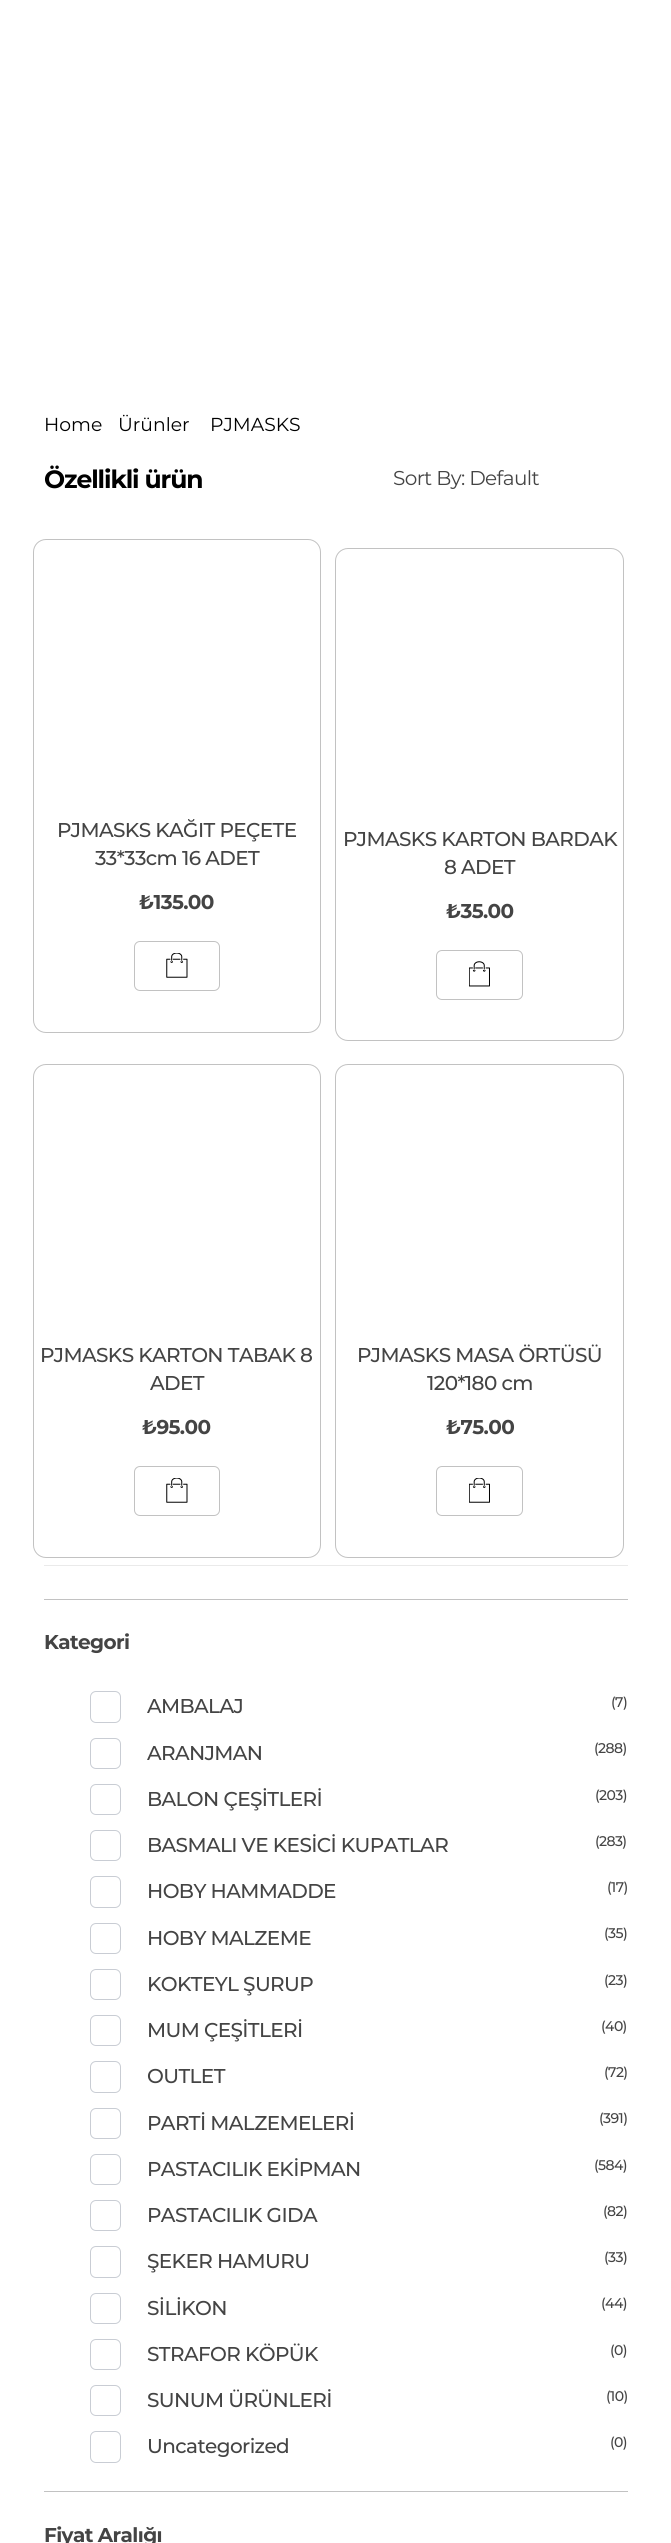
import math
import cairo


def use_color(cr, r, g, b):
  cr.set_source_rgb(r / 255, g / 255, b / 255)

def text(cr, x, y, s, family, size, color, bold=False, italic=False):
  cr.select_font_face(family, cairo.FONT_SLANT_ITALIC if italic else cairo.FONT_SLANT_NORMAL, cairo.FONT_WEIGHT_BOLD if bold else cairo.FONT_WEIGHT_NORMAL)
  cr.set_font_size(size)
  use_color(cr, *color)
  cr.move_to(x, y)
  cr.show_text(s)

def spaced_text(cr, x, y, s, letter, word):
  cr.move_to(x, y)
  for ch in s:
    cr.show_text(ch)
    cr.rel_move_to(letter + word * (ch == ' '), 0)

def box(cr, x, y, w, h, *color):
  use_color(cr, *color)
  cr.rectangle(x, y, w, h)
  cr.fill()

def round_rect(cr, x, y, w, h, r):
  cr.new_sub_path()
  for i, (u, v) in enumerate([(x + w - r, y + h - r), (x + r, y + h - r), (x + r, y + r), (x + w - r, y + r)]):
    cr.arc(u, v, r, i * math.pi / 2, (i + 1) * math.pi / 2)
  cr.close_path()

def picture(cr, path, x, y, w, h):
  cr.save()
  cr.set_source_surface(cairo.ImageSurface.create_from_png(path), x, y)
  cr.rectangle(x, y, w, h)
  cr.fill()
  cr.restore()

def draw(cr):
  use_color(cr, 255, 255, 255)
  cr.paint()
  round_rect(cr, 33.5, 539.5, 287, 493, 12.5)
  use_color(cr, 194, 194, 194)
  cr.set_line_width(1)
  cr.stroke()
  round_rect(cr, 134.5, 941.5, 85, 49, 5.5)
  cr.stroke()
  picture(cr, "img_01.png", 166, 953, 22, 25)
  round_rect(cr, 335.5, 548.5, 288, 492, 12.5)
  cr.stroke()
  round_rect(cr, 436.5, 950.5, 86, 49, 5.5)
  cr.stroke()
  picture(cr, "img_02.png", 469, 961, 21, 26)
  round_rect(cr, 33.5, 1064.5, 287, 493, 12.5)
  cr.stroke()
  round_rect(cr, 134.5, 1466.5, 85, 49, 5.5)
  cr.stroke()
  picture(cr, "img_01.png", 166, 1478, 22, 25)
  round_rect(cr, 335.5, 1064.5, 288, 493, 12.5)
  cr.stroke()
  round_rect(cr, 436.5, 1466.5, 86, 49, 5.5)
  cr.stroke()
  picture(cr, "img_03.png", 469, 1478, 21, 25)
  box(cr, 44, 1565, 584, 1, 234, 234, 234)
  box(cr, 44, 1599, 584, 1, 194, 194, 194)
  round_rect(cr, 90.5, 1691.5, 30, 31, 5.5)
  use_color(cr, 201, 205, 212)
  cr.stroke()
  round_rect(cr, 90.5, 1738.5, 30, 30, 5.5)
  cr.stroke()
  round_rect(cr, 90.5, 1784.5, 30, 30, 5.5)
  cr.stroke()
  round_rect(cr, 90.5, 1830.5, 30, 30, 5.5)
  cr.stroke()
  round_rect(cr, 90.5, 1876.5, 30, 31, 5.5)
  cr.stroke()
  round_rect(cr, 90.5, 1923.5, 30, 30, 5.5)
  cr.stroke()
  round_rect(cr, 90.5, 1969.5, 30, 30, 5.5)
  cr.stroke()
  round_rect(cr, 90.5, 2015.5, 30, 30, 5.5)
  cr.stroke()
  round_rect(cr, 90.5, 2061.5, 30, 31, 5.5)
  cr.stroke()
  round_rect(cr, 90.5, 2108.5, 30, 30, 5.5)
  cr.stroke()
  round_rect(cr, 90.5, 2154.5, 30, 30, 5.5)
  cr.stroke()
  round_rect(cr, 90.5, 2200.5, 30, 30, 5.5)
  cr.stroke()
  round_rect(cr, 90.5, 2246.5, 30, 31, 5.5)
  cr.stroke()
  round_rect(cr, 90.5, 2293.5, 30, 30, 5.5)
  cr.stroke()
  round_rect(cr, 90.5, 2339.5, 30, 30, 5.5)
  cr.stroke()
  round_rect(cr, 90.5, 2385.5, 30, 30, 5.5)
  cr.stroke()
  round_rect(cr, 90.5, 2431.5, 30, 31, 5.5)
  cr.stroke()
  box(cr, 44, 2491, 584, 1, 194, 194, 194)
  text(cr, 44, 431, "Home", "Montserrat", 18.75, (0, 0, 0))
  text(cr, 118, 431, "Ürünler", "Montserrat", 18.75, (0, 0, 0))
  text(cr, 210, 431, "PJMASKS", "Montserrat", 18.75, (0, 0, 0))
  cr.select_font_face("Montserrat", cairo.FONT_SLANT_NORMAL, cairo.FONT_WEIGHT_BOLD)
  cr.set_font_size(25)
  spaced_text(cr, 44, 488, "Özellikli ürün", -1.1, 0)
  cr.select_font_face("Montserrat")
  cr.set_font_size(20)
  use_color(cr, 68, 68, 68)
  spaced_text(cr, 393, 485, "Sort By: Default", -0.6, 0)
  cr.select_font_face("Montserrat Medium")
  spaced_text(cr, 57, 837, "PJMASKS KAĞIT PEÇETE", -0.6, 0)
  spaced_text(cr, 95, 865, "33*33cm 16 ADET", -0.6, 0)
  cr.select_font_face("Montserrat", cairo.FONT_SLANT_NORMAL, cairo.FONT_WEIGHT_BOLD)
  spaced_text(cr, 139, 909, "₺135.00", -0.6, 0)
  cr.select_font_face("Montserrat Medium")
  spaced_text(cr, 343, 846, "PJMASKS KARTON BARDAK", -0.6, 0)
  spaced_text(cr, 444, 874, "8 ADET", -0.6, 0)
  cr.select_font_face("Montserrat", cairo.FONT_SLANT_NORMAL, cairo.FONT_WEIGHT_BOLD)
  spaced_text(cr, 446, 918, "₺35.00", -0.6, 0)
  cr.select_font_face("Montserrat Medium")
  spaced_text(cr, 40, 1362, "PJMASKS KARTON TABAK 8", -0.6, 0)
  spaced_text(cr, 150, 1390, "ADET", -0.6, 0)
  cr.select_font_face("Montserrat", cairo.FONT_SLANT_NORMAL, cairo.FONT_WEIGHT_BOLD)
  spaced_text(cr, 142, 1434, "₺95.00", -0.6, 0)
  cr.select_font_face("Montserrat Medium")
  spaced_text(cr, 357, 1362, "PJMASKS MASA ÖRTÜSÜ", -0.6, 0)
  spaced_text(cr, 427, 1390, "120*180 cm", -0.6, 0)
  cr.select_font_face("Montserrat", cairo.FONT_SLANT_NORMAL, cairo.FONT_WEIGHT_BOLD)
  spaced_text(cr, 446, 1434, "₺75.00", -0.6, 0)
  spaced_text(cr, 44, 1649, "Kategori", -0.6, 0)
  cr.select_font_face("Montserrat Medium")
  spaced_text(cr, 147, 1713, "AMBALAJ", -0.6, 0)
  cr.set_font_size(14)
  spaced_text(cr, 611, 1707, "(7)", -0.6, 0)
  cr.set_font_size(20)
  spaced_text(cr, 147, 1760, "ARANJMAN", -0.6, 0)
  cr.set_font_size(14)
  spaced_text(cr, 594, 1753, "(288)", -0.6, 0)
  cr.set_font_size(20)
  spaced_text(cr, 147, 1806, "BALON ÇEŞİTLERİ", -0.6, 0)
  cr.set_font_size(14)
  spaced_text(cr, 595, 1800, "(203)", -0.6, 0)
  cr.set_font_size(20)
  spaced_text(cr, 147, 1852, "BASMALI VE KESİCİ KUPATLAR", -0.6, 0)
  cr.set_font_size(14)
  spaced_text(cr, 595, 1846, "(283)", -0.6, 0)
  cr.set_font_size(20)
  spaced_text(cr, 147, 1898, "HOBY HAMMADDE", -0.6, 0)
  cr.set_font_size(14)
  spaced_text(cr, 607, 1892, "(17)", -0.6, 0)
  cr.set_font_size(20)
  spaced_text(cr, 147, 1945, "HOBY MALZEME", -0.6, 0)
  cr.set_font_size(14)
  spaced_text(cr, 604, 1938, "(35)", -0.6, 0)
  cr.set_font_size(20)
  spaced_text(cr, 147, 1991, "KOKTEYL ŞURUP", -0.6, 0)
  cr.set_font_size(14)
  spaced_text(cr, 604, 1985, "(23)", -0.6, 0)
  cr.set_font_size(20)
  spaced_text(cr, 147, 2037, "MUM ÇEŞİTLERİ", -0.6, 0)
  cr.set_font_size(14)
  spaced_text(cr, 601, 2031, "(40)", -0.6, 0)
  cr.set_font_size(20)
  spaced_text(cr, 147, 2083, "OUTLET", -0.6, 0)
  cr.set_font_size(14)
  spaced_text(cr, 604, 2077, "(72)", -0.6, 0)
  cr.set_font_size(20)
  spaced_text(cr, 147, 2130, "PARTİ MALZEMELERİ", -0.6, 0)
  cr.set_font_size(14)
  spaced_text(cr, 599, 2123, "(391)", -0.6, 0)
  cr.set_font_size(20)
  spaced_text(cr, 147, 2176, "PASTACILIK EKİPMAN", -0.6, 0)
  cr.set_font_size(14)
  spaced_text(cr, 594, 2170, "(584)", -0.6, 0)
  cr.set_font_size(20)
  spaced_text(cr, 147, 2222, "PASTACILIK GIDA", -0.6, 0)
  cr.set_font_size(14)
  spaced_text(cr, 603, 2216, "(82)", -0.6, 0)
  cr.set_font_size(20)
  spaced_text(cr, 147, 2268, "ŞEKER HAMURU", -0.6, 0)
  cr.set_font_size(14)
  spaced_text(cr, 604, 2262, "(33)", -0.6, 0)
  cr.set_font_size(20)
  spaced_text(cr, 147, 2315, "SİLİKON", -0.6, 0)
  cr.set_font_size(14)
  spaced_text(cr, 601, 2308, "(44)", -0.6, 0)
  cr.set_font_size(20)
  spaced_text(cr, 147, 2361, "STRAFOR KÖPÜK", -0.6, 0)
  cr.set_font_size(14)
  spaced_text(cr, 610, 2355, "(0)", -0.6, 0)
  cr.set_font_size(20)
  spaced_text(cr, 147, 2407, "SUNUM ÜRÜNLERİ", -0.6, 0)
  cr.set_font_size(14)
  spaced_text(cr, 606, 2401, "(10)", -0.6, 0)
  cr.set_font_size(20)
  spaced_text(cr, 147, 2453, "Uncategorized", -0.6, 0)
  cr.set_font_size(14)
  spaced_text(cr, 610, 2447, "(0)", -0.6, 0)
  cr.select_font_face("Montserrat", cairo.FONT_SLANT_NORMAL, cairo.FONT_WEIGHT_BOLD)
  cr.set_font_size(20)
  spaced_text(cr, 44, 2542, "Fiyat Aralığı", -0.6, 0)


surface = cairo.ImageSurface(cairo.FORMAT_RGB24, 671, 2543)
cr = cairo.Context(surface)
options = cairo.FontOptions()
options.set_hint_metrics(cairo.HINT_METRICS_OFF)
options.set_hint_style(cairo.HINT_STYLE_NONE)
cr.set_font_options(options)
cr.set_miter_limit(4)
draw(cr)
surface.write_to_png("out.png")
